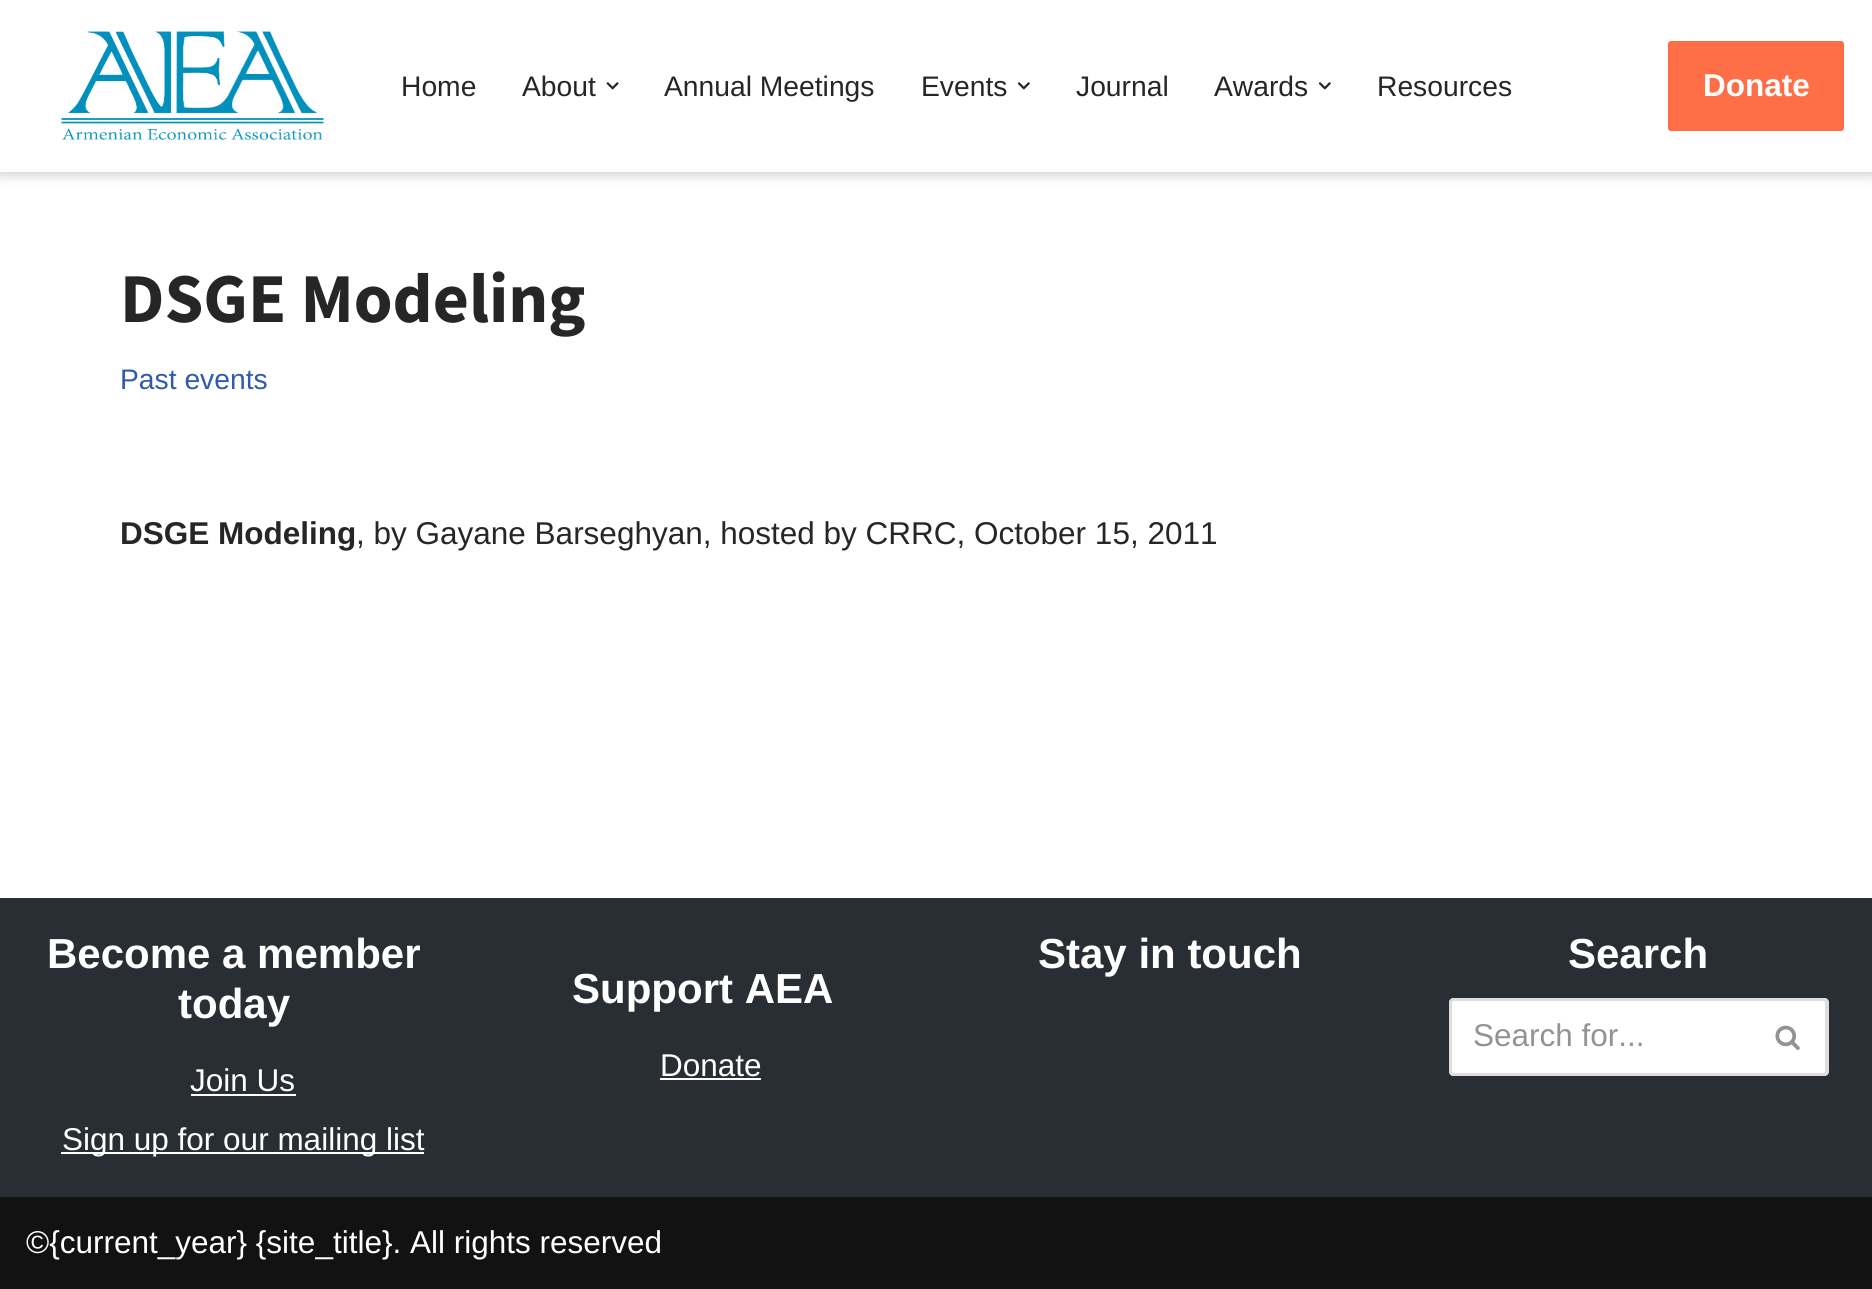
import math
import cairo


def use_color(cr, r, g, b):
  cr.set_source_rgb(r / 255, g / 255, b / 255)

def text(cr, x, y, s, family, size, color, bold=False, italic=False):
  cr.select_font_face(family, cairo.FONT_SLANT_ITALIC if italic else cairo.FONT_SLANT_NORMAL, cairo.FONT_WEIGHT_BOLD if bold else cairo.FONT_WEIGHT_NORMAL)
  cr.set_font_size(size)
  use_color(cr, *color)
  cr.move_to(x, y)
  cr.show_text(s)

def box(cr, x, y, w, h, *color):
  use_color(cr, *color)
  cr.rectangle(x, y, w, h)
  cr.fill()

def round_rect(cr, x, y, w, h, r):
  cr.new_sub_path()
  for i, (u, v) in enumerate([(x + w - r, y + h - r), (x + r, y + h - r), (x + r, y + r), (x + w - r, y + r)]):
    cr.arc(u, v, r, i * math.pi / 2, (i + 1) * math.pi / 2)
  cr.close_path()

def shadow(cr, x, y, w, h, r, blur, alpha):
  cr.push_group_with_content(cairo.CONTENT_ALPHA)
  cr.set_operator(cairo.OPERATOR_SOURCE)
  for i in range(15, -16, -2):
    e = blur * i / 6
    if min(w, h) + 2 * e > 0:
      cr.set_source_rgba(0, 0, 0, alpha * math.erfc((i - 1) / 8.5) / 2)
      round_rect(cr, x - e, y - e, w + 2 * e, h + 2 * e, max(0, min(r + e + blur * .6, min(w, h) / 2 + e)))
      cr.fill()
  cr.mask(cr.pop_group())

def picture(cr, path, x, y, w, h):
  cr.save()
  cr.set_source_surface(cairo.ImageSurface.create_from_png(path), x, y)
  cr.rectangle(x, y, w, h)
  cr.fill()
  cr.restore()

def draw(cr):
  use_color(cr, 255, 255, 255)
  cr.paint()
  use_color(cr, 0, 0, 0)
  shadow(cr, 0, 2, 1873, 171, 0, 7, 0.25)
  box(cr, 0, 0, 1872, 172, 255, 255, 255)
  picture(cr, "img_01.png", 61, 31, 263, 109)
  picture(cr, "img_02.png", 606, 82, 13, 8)
  picture(cr, "img_03.png", 1017, 82, 13, 8)
  picture(cr, "img_03.png", 1318, 82, 13, 8)
  use_color(cr, 254, 111, 71)
  round_rect(cr, 1667, 40, 178, 92, 4)
  cr.fill_preserve()
  use_color(cr, 255, 255, 255)
  cr.stroke()
  box(cr, 0, 898, 1872, 299, 40, 46, 51)
  box(cr, 191, 1094, 105, 2, 255, 255, 255)
  box(cr, 61, 1152, 363, 2, 255, 255, 255)
  box(cr, 660, 1078, 101, 2, 255, 255, 255)
  cr.new_path()
  cr.move_to(1454, 998)
  cr.line_to(1750, 998)
  cr.line_to(1750, 1076)
  cr.line_to(1454, 1076)
  cr.curve_to(1451, 1076, 1449, 1074, 1449, 1071)
  cr.line_to(1449, 1003)
  cr.curve_to(1449, 1000, 1451, 998, 1454, 998)
  cr.close_path()
  cr.fill()
  use_color(cr, 221, 221, 221)
  cr.set_fill_rule(cairo.FILL_RULE_EVEN_ODD)
  cr.new_path()
  cr.move_to(1454, 998)
  cr.line_to(1750, 998)
  cr.line_to(1750, 1076)
  cr.line_to(1454, 1076)
  cr.curve_to(1451, 1076, 1449, 1074, 1449, 1071)
  cr.line_to(1449, 1003)
  cr.curve_to(1449, 1000, 1451, 998, 1454, 998)
  cr.close_path()
  cr.move_to(1454, 1001)
  cr.line_to(1750, 1001)
  cr.line_to(1750, 1073)
  cr.line_to(1454, 1073)
  cr.curve_to(1453, 1073, 1452, 1072, 1452, 1071)
  cr.line_to(1452, 1003)
  cr.curve_to(1452, 1002, 1453, 1001, 1454, 1001)
  cr.close_path()
  cr.fill()
  use_color(cr, 255, 255, 255)
  cr.new_path()
  cr.move_to(1750, 998)
  cr.line_to(1824, 998)
  cr.curve_to(1827, 998, 1829, 1000, 1829, 1003)
  cr.line_to(1829, 1071)
  cr.curve_to(1829, 1074, 1827, 1076, 1824, 1076)
  cr.line_to(1750, 1076)
  cr.close_path()
  cr.fill()
  use_color(cr, 221, 221, 221)
  cr.new_path()
  cr.move_to(1750, 998)
  cr.line_to(1824, 998)
  cr.curve_to(1826, 998, 1829, 1000, 1829, 1003)
  cr.line_to(1829, 1071)
  cr.curve_to(1829, 1074, 1826, 1076, 1824, 1076)
  cr.line_to(1750, 1076)
  cr.close_path()
  cr.move_to(1750, 1001)
  cr.line_to(1824, 1001)
  cr.curve_to(1824, 1001, 1825, 1002, 1825, 1003)
  cr.line_to(1825, 1071)
  cr.curve_to(1825, 1072, 1824, 1073, 1824, 1073)
  cr.line_to(1750, 1073)
  cr.close_path()
  cr.fill()
  picture(cr, "img_04.png", 1775, 1025, 25, 25)
  box(cr, 0, 1197, 1872, 92, 18, 18, 18)
  text(cr, 401, 96, "Home", "Liberation Sans", 28.25, (39, 38, 38))
  text(cr, 522, 96, "About", "Liberation Sans", 28.25, (39, 38, 38))
  text(cr, 664, 96, "Annual Meetings", "Liberation Sans", 28.25, (39, 38, 38))
  text(cr, 921, 96, "Events", "Liberation Sans", 28.25, (39, 38, 38))
  text(cr, 1076, 96, "Journal", "Liberation Sans", 28.25, (39, 38, 38))
  text(cr, 1214, 96, "Awards", "Liberation Sans", 28.25, (39, 38, 38))
  text(cr, 1377, 96, "Resources", "Liberation Sans", 28.25, (39, 38, 38))
  text(cr, 1703, 96, "Donate", "Liberation Sans", 31.5, (255, 255, 255), bold=True)
  text(cr, 120, 322, "DSGE Modeling", "Source Sans Pro", 70, (39, 38, 38), bold=True)
  text(cr, 120, 389, "Past events", "Liberation Sans", 28.25, (47, 90, 174))
  text(cr, 120, 544, "DSGE Modeling", "Liberation Sans", 31.5, (39, 38, 38), bold=True)
  text(cr, 356, 544, ", by Gayane Barseghyan, hosted by CRRC, October 15, 2011", "Liberation Sans", 31.5, (39, 38, 38))
  text(cr, 47, 968, "Become a member", "Liberation Sans", 42, (255, 255, 255), bold=True)
  text(cr, 178, 1018, "today", "Liberation Sans", 42, (255, 255, 255), bold=True)
  text(cr, 190, 1091, "Join Us", "Liberation Sans", 31.5, (255, 255, 255))
  text(cr, 62, 1150, "Sign up for our mailing list", "Liberation Sans", 31.5, (255, 255, 255))
  text(cr, 572, 1003, "Support AEA", "Liberation Sans", 42, (255, 255, 255), bold=True)
  text(cr, 660, 1076, "Donate", "Liberation Sans", 31.5, (255, 255, 255))
  text(cr, 1038, 968, "Stay in touch", "Liberation Sans", 42, (255, 255, 255), bold=True)
  text(cr, 1568, 968, "Search", "Liberation Sans", 42, (255, 255, 255), bold=True)
  text(cr, 1473, 1046, "Search for...", "Liberation Sans", 31.5, (147, 147, 147))
  text(cr, 26, 1253, "©{current_year} {site_title}. All rights reserved", "Liberation Sans", 31.5, (255, 255, 255))


surface = cairo.ImageSurface(cairo.FORMAT_RGB24, 1872, 1289)
cr = cairo.Context(surface)
options = cairo.FontOptions()
options.set_hint_metrics(cairo.HINT_METRICS_OFF)
options.set_hint_style(cairo.HINT_STYLE_NONE)
cr.set_font_options(options)
cr.set_miter_limit(4)
draw(cr)
surface.write_to_png("out.png")
